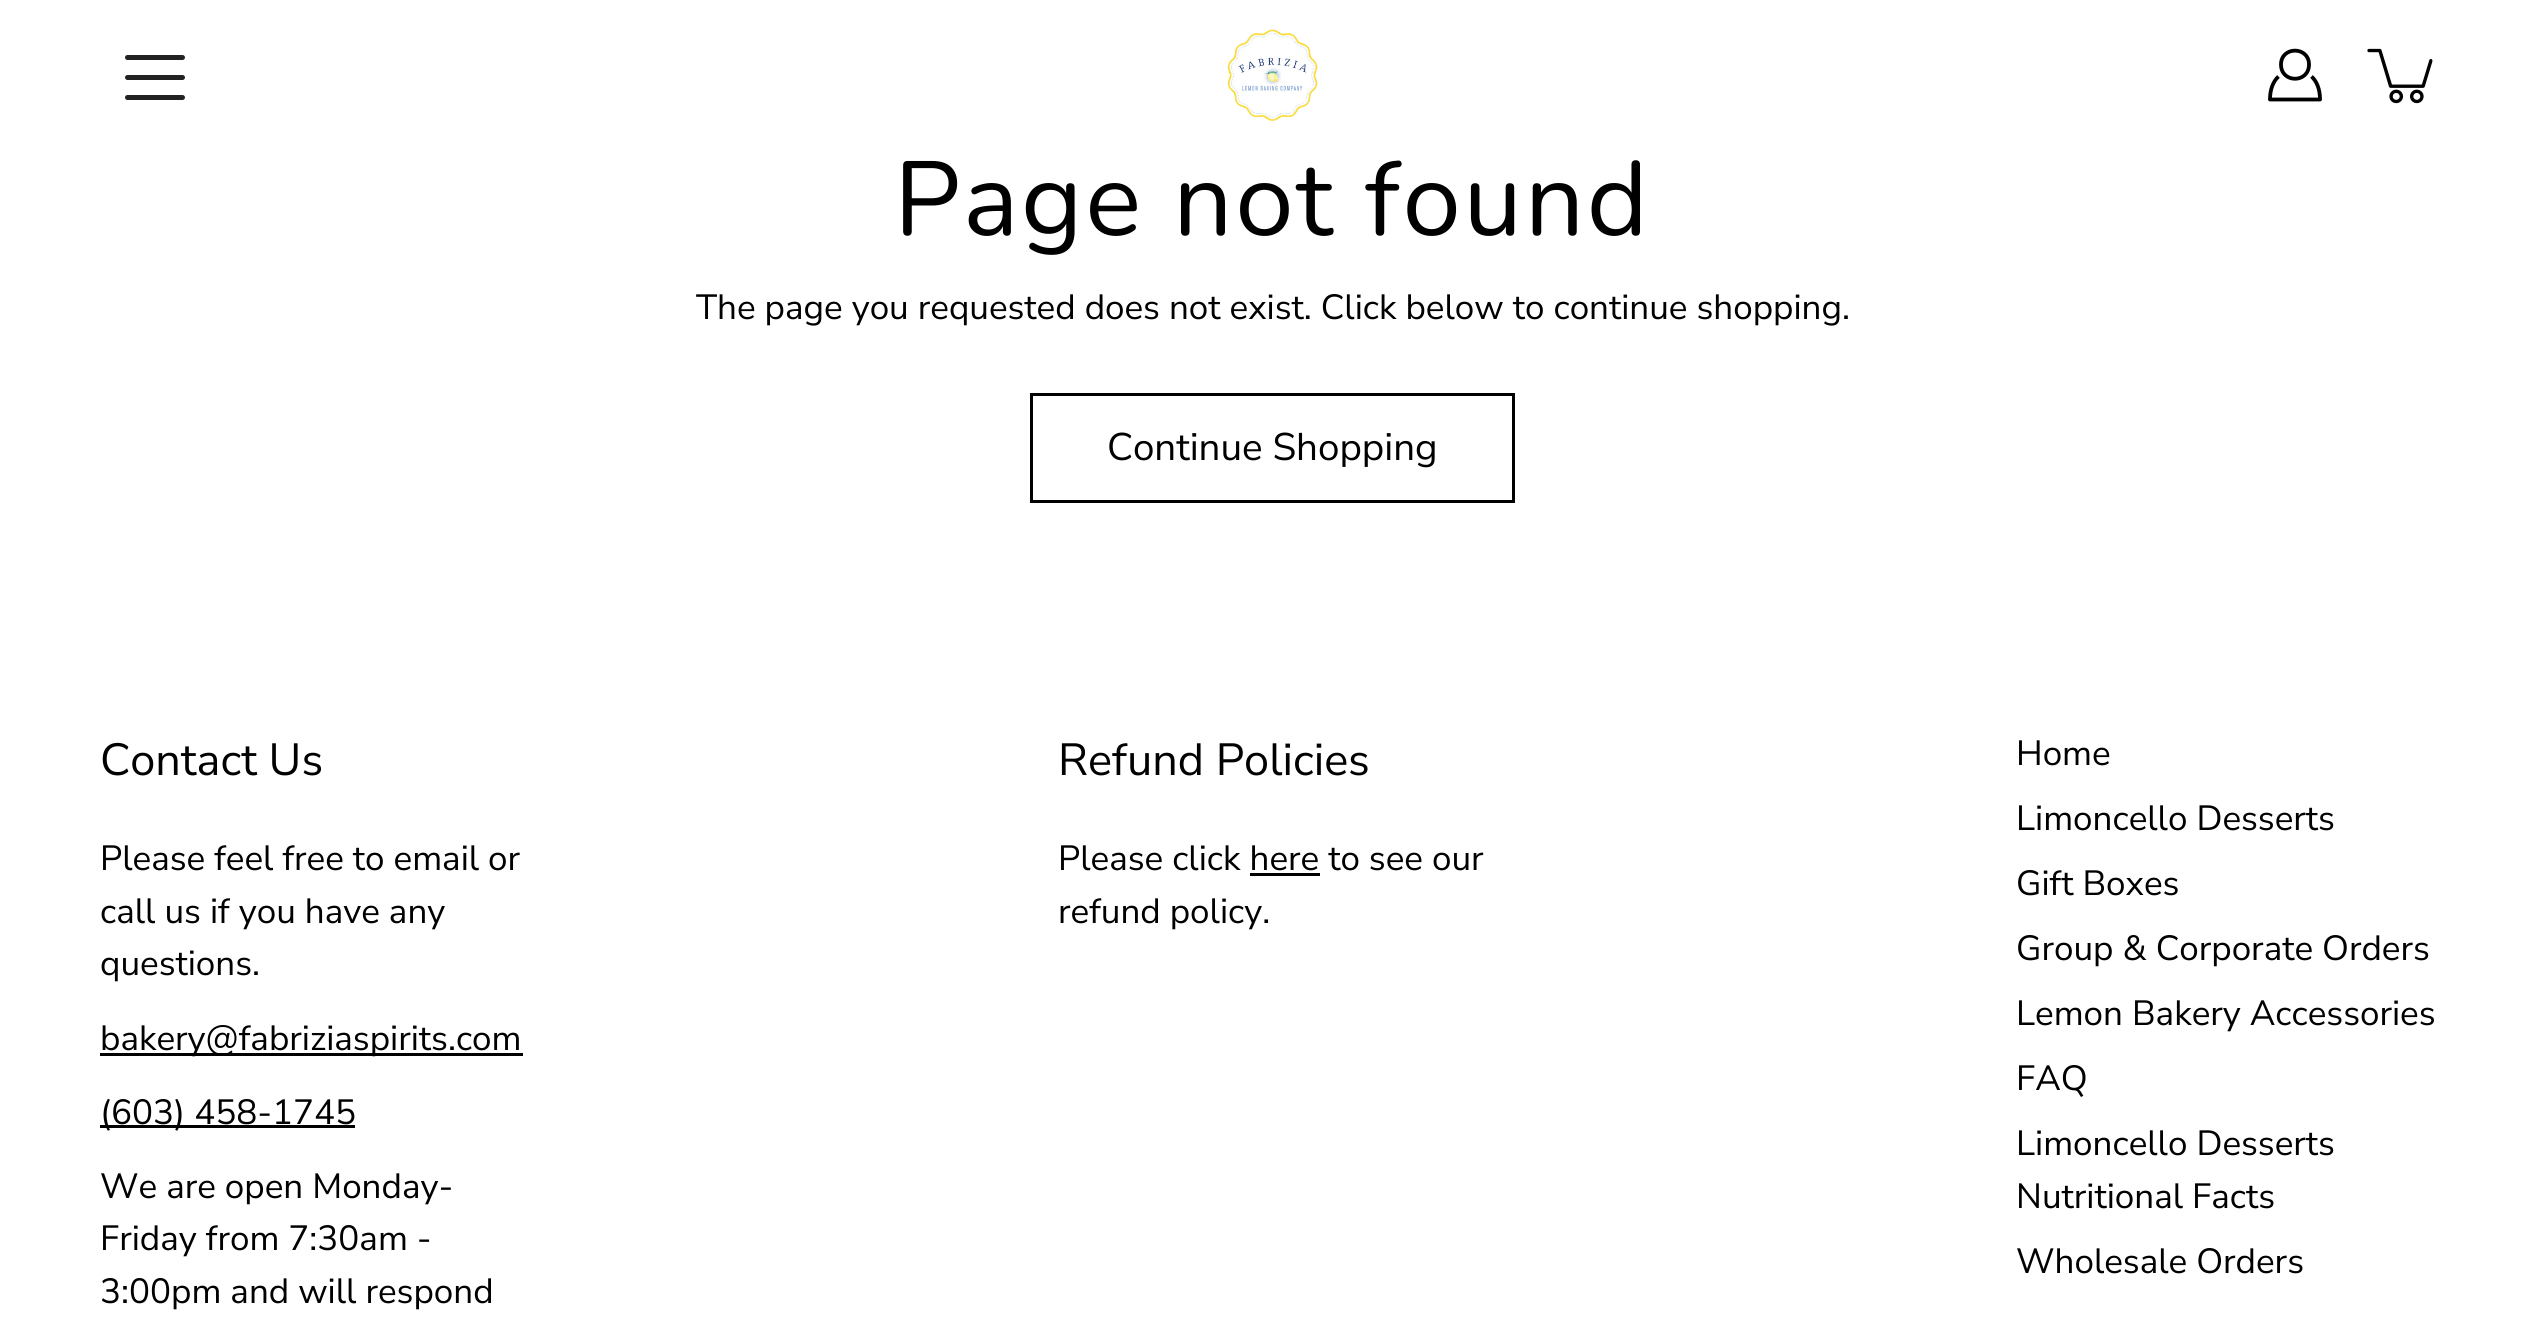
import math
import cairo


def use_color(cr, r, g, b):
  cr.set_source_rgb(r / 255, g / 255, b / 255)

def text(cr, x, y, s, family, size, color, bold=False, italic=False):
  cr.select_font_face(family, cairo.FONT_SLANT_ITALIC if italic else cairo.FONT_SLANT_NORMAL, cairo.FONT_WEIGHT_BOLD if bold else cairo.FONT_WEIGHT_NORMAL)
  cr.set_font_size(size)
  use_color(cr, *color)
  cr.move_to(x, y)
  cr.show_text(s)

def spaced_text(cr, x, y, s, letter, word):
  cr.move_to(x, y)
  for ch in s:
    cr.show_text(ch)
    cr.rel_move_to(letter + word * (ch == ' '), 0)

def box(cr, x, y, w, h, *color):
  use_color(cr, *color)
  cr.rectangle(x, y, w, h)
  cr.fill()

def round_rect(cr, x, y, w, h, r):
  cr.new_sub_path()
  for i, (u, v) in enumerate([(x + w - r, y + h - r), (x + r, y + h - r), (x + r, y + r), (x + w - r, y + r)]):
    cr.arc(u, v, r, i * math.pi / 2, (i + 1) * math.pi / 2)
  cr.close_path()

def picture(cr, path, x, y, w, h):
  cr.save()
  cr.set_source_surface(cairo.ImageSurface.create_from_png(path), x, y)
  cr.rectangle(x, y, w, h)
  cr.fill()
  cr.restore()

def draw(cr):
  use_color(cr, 255, 255, 255)
  cr.paint()
  picture(cr, "img_01.png", 1227, 29, 91, 92)
  use_color(cr, 34, 34, 34)
  round_rect(cr, 125, 75, 60, 5, 2.5)
  cr.fill()
  round_rect(cr, 125, 55, 60, 5, 2.5)
  cr.fill()
  round_rect(cr, 125, 95, 60, 5, 2.5)
  cr.fill()
  cr.new_path()
  cr.move_to(2309, 64.5)
  cr.curve_to(2309, 83.5, 2281, 83.5, 2281, 64.5)
  cr.curve_to(2281, 46, 2309, 46, 2309, 64.5)
  cr.close_path()
  use_color(cr, 0, 0, 0)
  cr.set_line_width(3.8)
  cr.stroke()
  cr.new_path()
  cr.move_to(2278.5, 76.5)
  cr.curve_to(2273, 81.5, 2270, 89.5, 2270, 99.5)
  cr.move_to(2311.5, 76.5)
  cr.curve_to(2317, 81.5, 2320, 89.5, 2320, 99.5)
  cr.set_line_join(cairo.LINE_JOIN_ROUND)
  cr.stroke()
  cr.new_path()
  cr.move_to(2270, 99.5)
  cr.line_to(2320, 99.5)
  cr.set_line_cap(cairo.LINE_CAP_ROUND)
  cr.stroke()
  picture(cr, "img_02.png", 2367, 48, 66, 56)
  cr.rectangle(1031.5, 394.5, 482, 107)
  cr.set_line_width(3)
  cr.set_line_cap(cairo.LINE_CAP_BUTT)
  cr.set_line_join(cairo.LINE_JOIN_MITER)
  cr.stroke()
  box(cr, 100, 1053, 423, 3, 0, 0, 0)
  box(cr, 100, 1125, 255, 3, 0, 0, 0)
  box(cr, 1250, 873, 70, 3, 0, 0, 0)
  cr.select_font_face("Nunito")
  cr.set_font_size(105)
  spaced_text(cr, 894, 235, "Page not found", 2.5, 0)
  text(cr, 696, 319, "The page you requested does not exist. Click below to continue shopping.", "Nunito Sans", 35, (0, 0, 0))
  text(cr, 1107, 460, "Continue Shopping", "Nunito Sans", 38.5, (0, 0, 0))
  text(cr, 100, 775, "Contact Us", "Nunito Sans", 45, (0, 0, 0))
  text(cr, 100, 870, "Please feel free to email or", "Nunito Sans", 35, (0, 0, 0))
  text(cr, 100, 923, "call us if you have any", "Nunito Sans", 35, (0, 0, 0))
  text(cr, 100, 975, "questions.", "Nunito Sans", 35, (0, 0, 0))
  text(cr, 100, 1050, "bakery@fabriziaspirits.com", "Nunito Sans", 35, (0, 0, 0))
  text(cr, 100, 1124, "(603) 458-1745", "Nunito Sans", 35, (0, 0, 0))
  text(cr, 100, 1198, "We are open Monday-", "Nunito Sans", 35, (0, 0, 0))
  text(cr, 100, 1250, "Friday from 7:30am -", "Nunito Sans", 35, (0, 0, 0))
  text(cr, 100, 1303, "3:00pm and will respond", "Nunito Sans", 35, (0, 0, 0))
  text(cr, 1058, 775, "Refund Policies", "Nunito Sans", 45, (0, 0, 0))
  text(cr, 1058, 870, "Please click here to see our", "Nunito Sans", 35, (0, 0, 0))
  text(cr, 1058, 923, "refund policy.", "Nunito Sans", 35, (0, 0, 0))
  text(cr, 2016, 765, "Home", "Nunito Sans", 35, (0, 0, 0))
  text(cr, 2016, 830, "Limoncello Desserts", "Nunito Sans", 35, (0, 0, 0))
  text(cr, 2016, 895, "Gift Boxes", "Nunito Sans", 35, (0, 0, 0))
  text(cr, 2016, 960, "Group & Corporate Orders", "Nunito Sans", 35, (0, 0, 0))
  text(cr, 2016, 1025, "Lemon Bakery Accessories", "Nunito Sans", 35, (0, 0, 0))
  text(cr, 2016, 1090, "FAQ", "Nunito Sans", 35, (0, 0, 0))
  text(cr, 2016, 1155, "Limoncello Desserts", "Nunito Sans", 35, (0, 0, 0))
  text(cr, 2016, 1208, "Nutritional Facts", "Nunito Sans", 35, (0, 0, 0))
  text(cr, 2016, 1273, "Wholesale Orders", "Nunito Sans", 35, (0, 0, 0))


surface = cairo.ImageSurface(cairo.FORMAT_RGB24, 2543, 1329)
cr = cairo.Context(surface)
options = cairo.FontOptions()
options.set_hint_metrics(cairo.HINT_METRICS_OFF)
options.set_hint_style(cairo.HINT_STYLE_NONE)
cr.set_font_options(options)
cr.set_miter_limit(4)
draw(cr)
surface.write_to_png("out.png")
